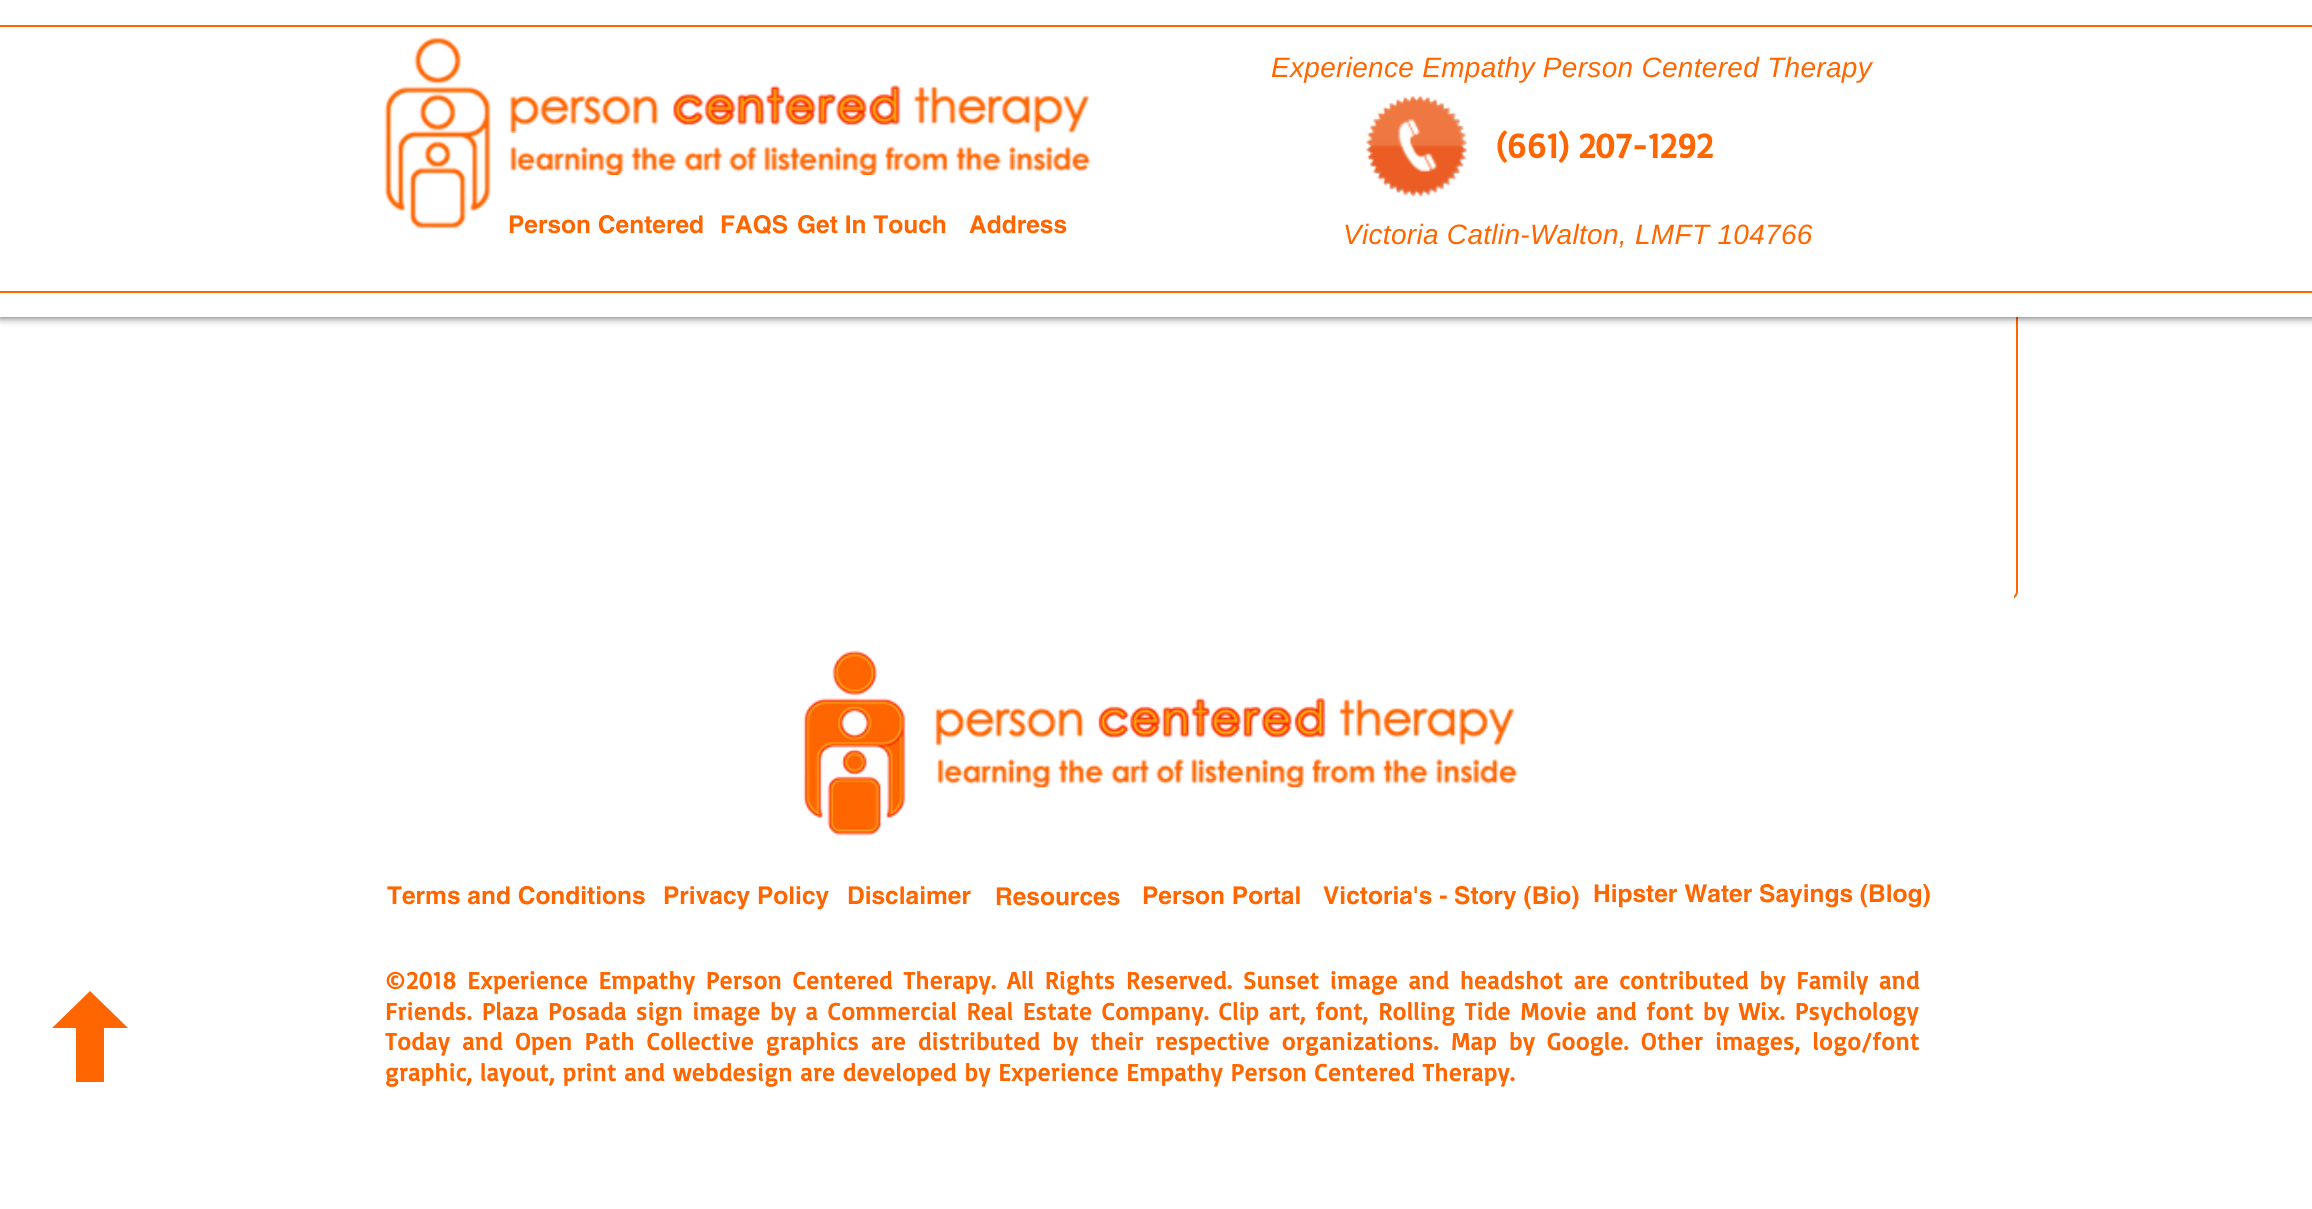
import math
import cairo


def use_color(cr, r, g, b):
  cr.set_source_rgb(r / 255, g / 255, b / 255)

def text(cr, x, y, s, family, size, color, bold=False, italic=False):
  cr.select_font_face(family, cairo.FONT_SLANT_ITALIC if italic else cairo.FONT_SLANT_NORMAL, cairo.FONT_WEIGHT_BOLD if bold else cairo.FONT_WEIGHT_NORMAL)
  cr.set_font_size(size)
  use_color(cr, *color)
  cr.move_to(x, y)
  cr.show_text(s)

def spaced_text(cr, x, y, s, letter, word):
  cr.move_to(x, y)
  for ch in s:
    cr.show_text(ch)
    cr.rel_move_to(letter + word * (ch == ' '), 0)

def box(cr, x, y, w, h, *color):
  use_color(cr, *color)
  cr.rectangle(x, y, w, h)
  cr.fill()

def round_rect(cr, x, y, w, h, r):
  cr.new_sub_path()
  for i, (u, v) in enumerate([(x + w - r, y + h - r), (x + r, y + h - r), (x + r, y + r), (x + w - r, y + r)]):
    cr.arc(u, v, r, i * math.pi / 2, (i + 1) * math.pi / 2)
  cr.close_path()

def shadow(cr, x, y, w, h, r, blur, alpha):
  cr.push_group_with_content(cairo.CONTENT_ALPHA)
  cr.set_operator(cairo.OPERATOR_SOURCE)
  for i in range(15, -16, -2):
    e = blur * i / 6
    if min(w, h) + 2 * e > 0:
      cr.set_source_rgba(0, 0, 0, alpha * math.erfc((i - 1) / 8.5) / 2)
      round_rect(cr, x - e, y - e, w + 2 * e, h + 2 * e, max(0, min(r + e + blur * .6, min(w, h) / 2 + e)))
      cr.fill()
  cr.mask(cr.pop_group())

def picture(cr, path, x, y, w, h):
  cr.save()
  cr.set_source_surface(cairo.ImageSurface.create_from_png(path), x, y)
  cr.rectangle(x, y, w, h)
  cr.fill()
  cr.restore()

def draw(cr):
  use_color(cr, 255, 255, 255)
  cr.paint()
  round_rect(cr, 300, -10, 1717, 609, 8)
  use_color(cr, 255, 102, 0)
  cr.stroke()
  box(cr, 299, 317, 1715, 283, 255, 255, 255)
  use_color(cr, 0, 0, 0)
  shadow(cr, 0, 0, 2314, 317, 0, 4.5, 0.7)
  box(cr, 0, 0, 2312, 317, 255, 255, 255)
  box(cr, 0, 25, 2312, 2, 255, 102, 0)
  box(cr, 0, 291, 2312, 2, 255, 102, 0)
  picture(cr, "img_01.png", 384, 37, 107, 192)
  picture(cr, "img_02.png", 509, 85, 581, 48)
  picture(cr, "img_03.png", 510, 144, 581, 31)
  picture(cr, "img_04.png", 1366, 95, 102, 102)
  picture(cr, "img_05.png", 1397, 118, 41, 54)
  cr.new_path()
  cr.move_to(128, 1028)
  cr.line_to(90, 991)
  cr.line_to(52, 1028)
  cr.line_to(76, 1028)
  cr.line_to(76, 1082)
  cr.line_to(104, 1082)
  cr.line_to(104, 1028)
  cr.close_path()
  cr.fill()
  picture(cr, "img_06.png", 803, 650, 103, 186)
  picture(cr, "img_07.png", 934, 697, 581, 49)
  picture(cr, "img_08.png", 937, 759, 581, 29)
  cr.select_font_face("Liberation Sans", cairo.FONT_SLANT_ITALIC)
  cr.set_font_size(28)
  spaced_text(cr, 1271, 77, "Experience Empathy Person Centered Therapy", 0.3, 0)
  text(cr, 1496, 158, "(661) 207-1292", "Basic", 35, (255, 102, 0), bold=True)
  text(cr, 508, 233, "Person Centered", "helvetica", 24.5, (255, 102, 0), bold=True)
  text(cr, 720, 233, "FAQS", "helvetica", 24.5, (255, 102, 0), bold=True)
  text(cr, 797, 233, "Get In Touch", "helvetica", 24.5, (255, 102, 0), bold=True)
  text(cr, 969, 233, "Address", "helvetica", 24.5, (255, 102, 0), bold=True)
  cr.select_font_face("Liberation Sans", cairo.FONT_SLANT_ITALIC)
  cr.set_font_size(28)
  spaced_text(cr, 1343, 244, "Victoria Catlin-Walton, LMFT 104766", 0.3, 0)
  text(cr, 387, 904, "Terms and Conditions", "helvetica", 24.5, (255, 102, 0), bold=True)
  text(cr, 663, 904, "Privacy Policy", "helvetica", 24.5, (255, 102, 0), bold=True)
  text(cr, 847, 904, "Disclaimer", "helvetica", 24.5, (255, 102, 0), bold=True)
  text(cr, 995, 905, "Resources", "helvetica", 24.5, (255, 102, 0), bold=True)
  text(cr, 1142, 904, "Person Portal", "helvetica", 24.5, (255, 102, 0), bold=True)
  text(cr, 1323, 904, "Victoria's - Story (Bio)", "helvetica", 24.5, (255, 102, 0), bold=True)
  text(cr, 1593, 902, "Hipster Water Sayings (Blog)", "helvetica", 24.5, (255, 102, 0), bold=True)
  cr.select_font_face("Basic", cairo.FONT_SLANT_NORMAL, cairo.FONT_WEIGHT_BOLD)
  spaced_text(cr, 385, 989, "©2018 Experience Empathy Person Centered Therapy. All Rights Reserved. Sunset image and headshot are contributed by Family and", 0.73, 3)
  spaced_text(cr, 385, 1020, "Friends. Plaza Posada sign image by a Commercial Real Estate Company. Clip art, font, Rolling Tide Movie and font by Wix. Psychology", 0.73, 1.9)
  spaced_text(cr, 385, 1050, "Today and Open Path Collective graphics are distributed by their respective organizations. Map by Google. Other images, logo/font", 0.73, 4.4)
  spaced_text(cr, 385, 1081, "graphic, layout, print and webdesign are developed by Experience Empathy Person Centered Therapy.", 0.73, 0)


surface = cairo.ImageSurface(cairo.FORMAT_RGB24, 2312, 1209)
cr = cairo.Context(surface)
options = cairo.FontOptions()
options.set_hint_metrics(cairo.HINT_METRICS_OFF)
options.set_hint_style(cairo.HINT_STYLE_NONE)
cr.set_font_options(options)
cr.set_miter_limit(4)
draw(cr)
surface.write_to_png("out.png")
